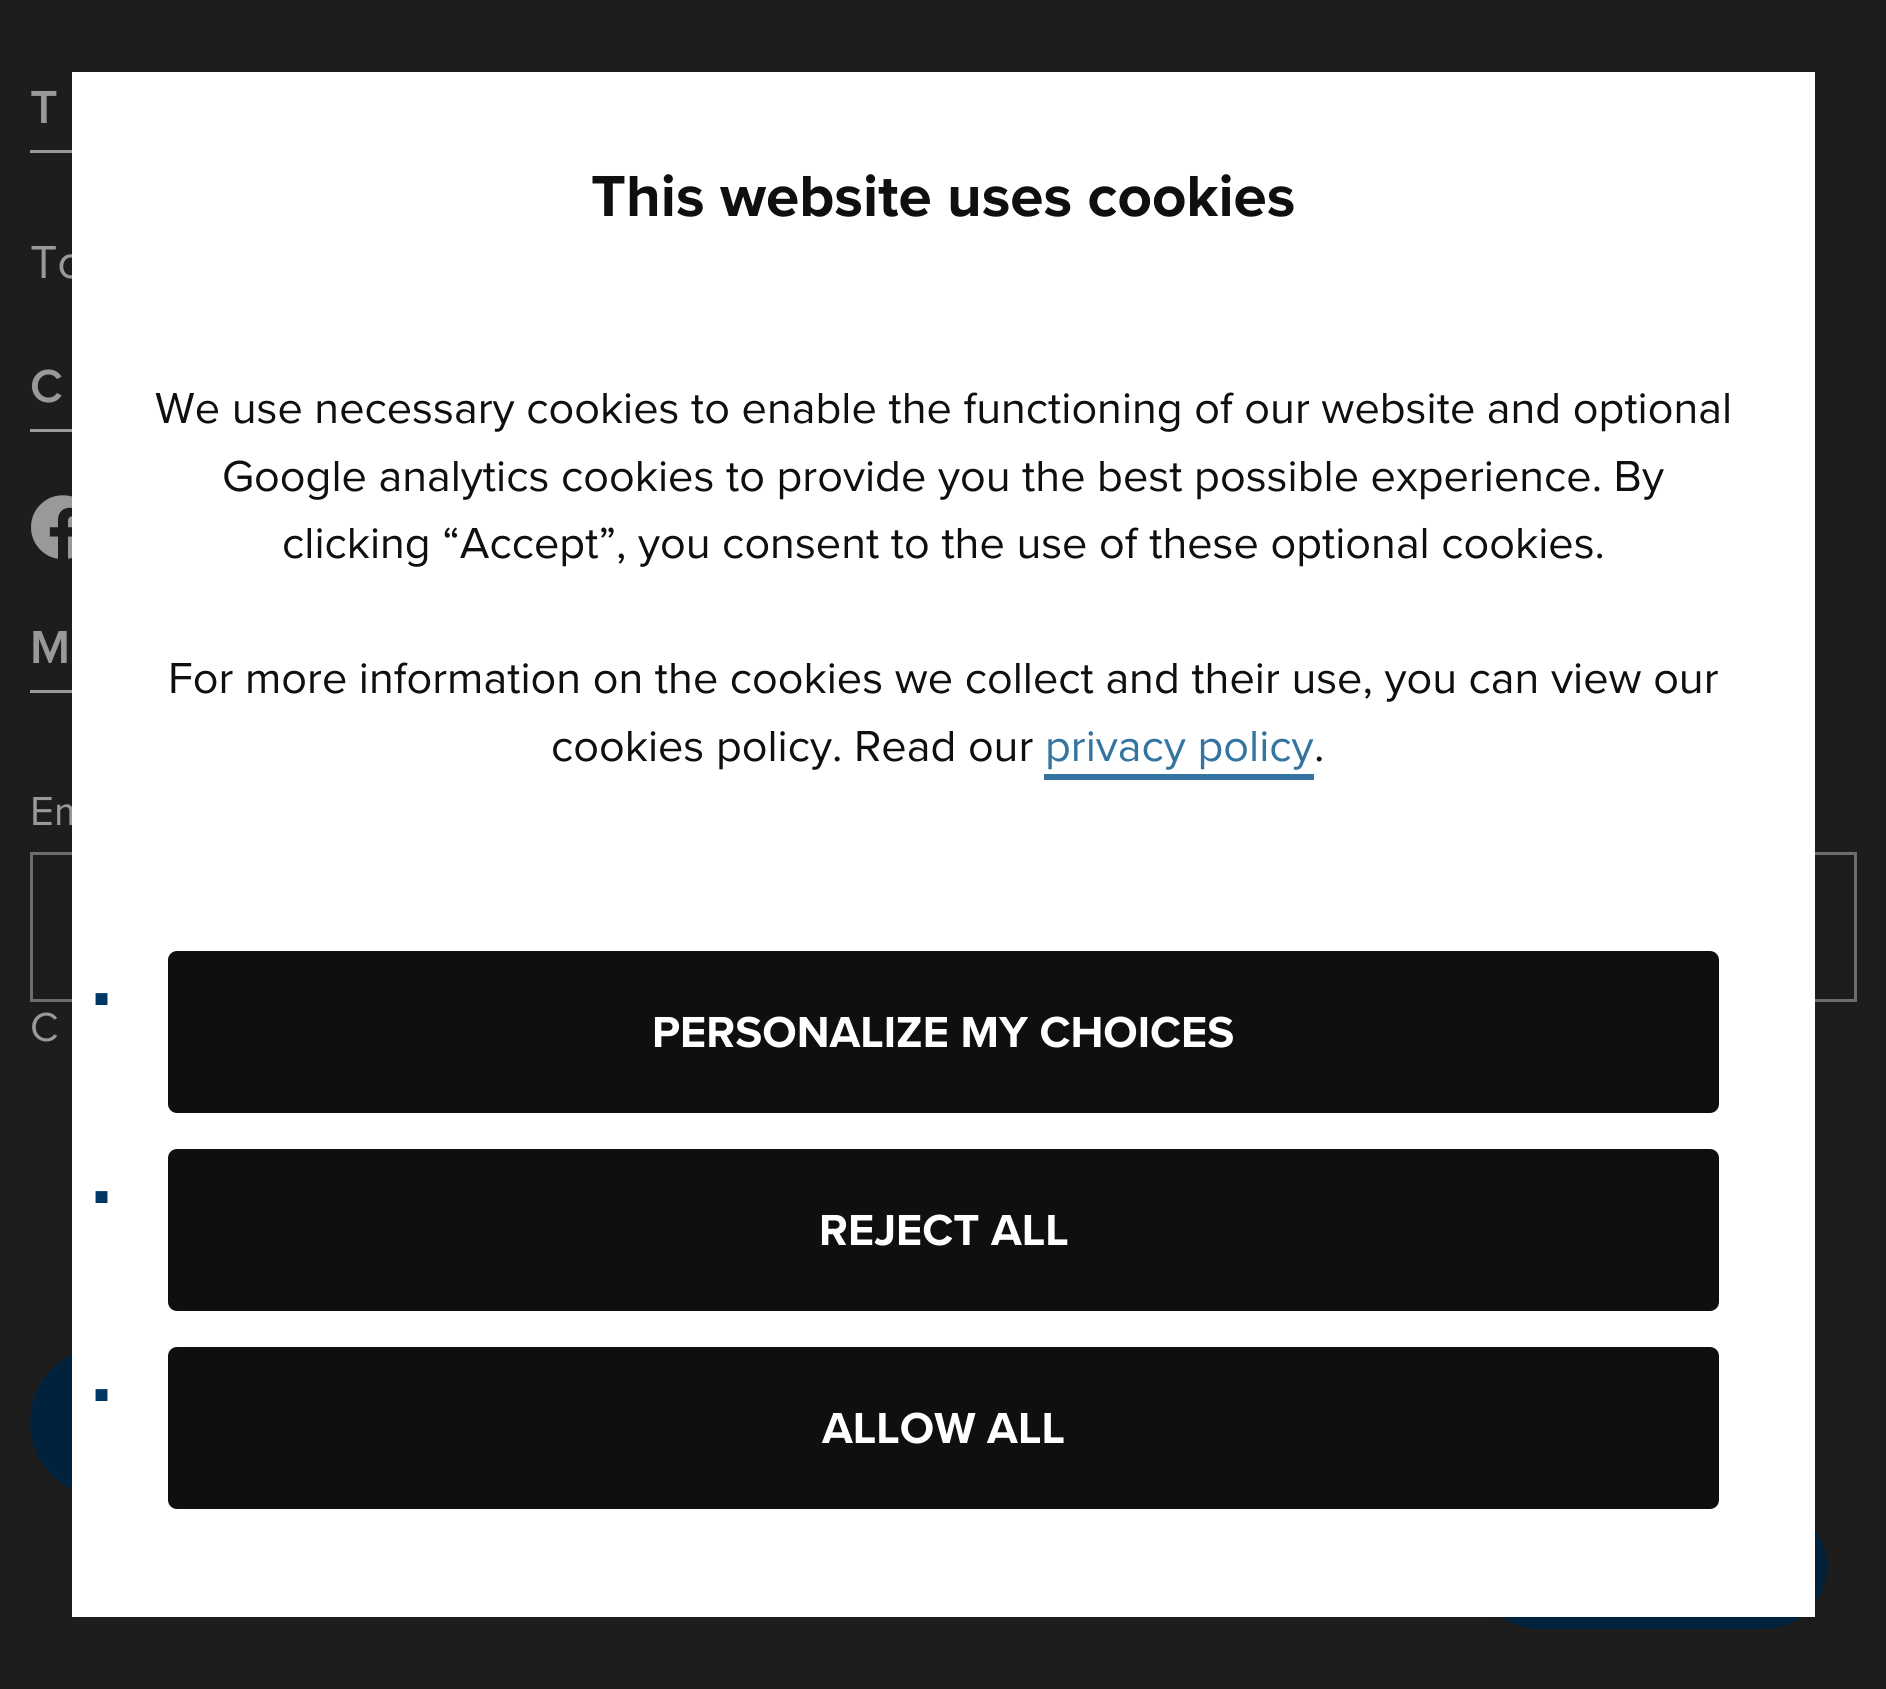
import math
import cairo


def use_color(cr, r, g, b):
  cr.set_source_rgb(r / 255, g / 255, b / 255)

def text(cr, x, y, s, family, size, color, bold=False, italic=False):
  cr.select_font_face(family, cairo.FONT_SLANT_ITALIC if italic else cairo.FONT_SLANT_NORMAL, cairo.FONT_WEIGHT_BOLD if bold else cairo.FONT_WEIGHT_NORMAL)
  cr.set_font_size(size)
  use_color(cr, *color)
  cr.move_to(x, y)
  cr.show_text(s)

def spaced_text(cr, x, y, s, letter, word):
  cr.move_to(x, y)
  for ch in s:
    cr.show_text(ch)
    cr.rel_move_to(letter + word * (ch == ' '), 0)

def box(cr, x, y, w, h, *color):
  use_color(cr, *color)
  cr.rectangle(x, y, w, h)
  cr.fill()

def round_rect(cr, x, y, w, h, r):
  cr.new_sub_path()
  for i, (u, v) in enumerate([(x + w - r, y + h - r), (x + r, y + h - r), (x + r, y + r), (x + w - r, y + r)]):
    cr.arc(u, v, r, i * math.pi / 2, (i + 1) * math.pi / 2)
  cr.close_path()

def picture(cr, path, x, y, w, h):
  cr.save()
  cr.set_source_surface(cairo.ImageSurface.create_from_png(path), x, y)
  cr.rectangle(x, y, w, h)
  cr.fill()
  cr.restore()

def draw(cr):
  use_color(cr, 29, 29, 29)
  cr.paint()
  box(cr, 30, 150, 42, 3, 153, 153, 153)
  box(cr, 30, 429, 42, 3, 153, 153, 153)
  picture(cr, "img_01.png", 31, 495, 41, 64)
  box(cr, 30, 690, 42, 3, 153, 153, 153)
  cr.rectangle(31.5, 853.5, 1824, 147)
  use_color(cr, 109, 109, 109)
  cr.set_line_width(3)
  cr.stroke()
  use_color(cr, 0, 34, 61)
  round_rect(cr, 33, 1350, 444, 144, 72)
  cr.fill_preserve()
  cr.set_line_width(6)
  cr.stroke()
  picture(cr, "img_02.png", 1488, 1521, 339, 108)
  cr.select_font_face("Proxima Nova SemiBold")
  cr.set_font_size(48)
  use_color(cr, 153, 153, 153)
  spaced_text(cr, 30, 123, "T", 7, 0)
  text(cr, 30, 278, "To", "Proxima Nova", 48, (153, 153, 153))
  cr.select_font_face("Proxima Nova SemiBold")
  spaced_text(cr, 30, 402, "C", 7, 0)
  spaced_text(cr, 30, 663, "M", 7, 0)
  text(cr, 30, 825, "Em", "Proxima Nova", 42, (153, 153, 153))
  text(cr, 30, 1041, "C", "Proxima Nova", 42, (153, 153, 153))
  box(cr, 72, 72, 1743, 1545, 255, 255, 255)
  text(cr, 591, 216, "This website uses cookies", "Proxima Nova", 60, (15, 15, 15), bold=True)
  text(cr, 155, 423, "We use necessary cookies to enable the functioning of our website and optional", "Proxima Nova", 45, (15, 15, 15))
  text(cr, 222, 491, "Google analytics cookies to provide you the best possible experience. By", "Proxima Nova", 45, (15, 15, 15))
  text(cr, 282, 558, "clicking “Accept”, you consent to the use of these optional cookies.", "Proxima Nova", 45, (15, 15, 15))
  text(cr, 168, 693, "For more information on the cookies we collect and their use, you can view our", "Proxima Nova", 45, (15, 15, 15))
  text(cr, 551, 761, "cookies policy. Read our", "Proxima Nova", 45, (15, 15, 15))
  text(cr, 1045, 761, "privacy policy", "Proxima Nova", 45, (51, 116, 161))
  box(cr, 1044, 774, 270, 6, 51, 116, 161)
  text(cr, 1314, 761, ".", "Proxima Nova", 45, (15, 15, 15))
  text(cr, 93, 1014, "▪", "Liberation Sans", 48, (0, 56, 101), bold=True)
  use_color(cr, 15, 15, 15)
  round_rect(cr, 171, 954, 1545, 156, 6)
  cr.fill_preserve()
  cr.stroke()
  text(cr, 652, 1047, "PERSONALIZE MY CHOICES", "Proxima Nova", 45, (255, 255, 255), bold=True)
  text(cr, 93, 1212, "▪", "Liberation Sans", 48, (0, 56, 101), bold=True)
  use_color(cr, 15, 15, 15)
  round_rect(cr, 171, 1152, 1545, 156, 6)
  cr.fill_preserve()
  cr.stroke()
  text(cr, 819, 1245, "REJECT ALL", "Proxima Nova", 45, (255, 255, 255), bold=True)
  text(cr, 93, 1410, "▪", "Liberation Sans", 48, (0, 56, 101), bold=True)
  use_color(cr, 15, 15, 15)
  round_rect(cr, 171, 1350, 1545, 156, 6)
  cr.fill_preserve()
  cr.stroke()
  text(cr, 822, 1443, "ALLOW ALL", "Proxima Nova", 45, (255, 255, 255), bold=True)


surface = cairo.ImageSurface(cairo.FORMAT_RGB24, 1886, 1689)
cr = cairo.Context(surface)
options = cairo.FontOptions()
options.set_hint_metrics(cairo.HINT_METRICS_OFF)
options.set_hint_style(cairo.HINT_STYLE_NONE)
cr.set_font_options(options)
cr.set_miter_limit(4)
draw(cr)
surface.write_to_png("out.png")
